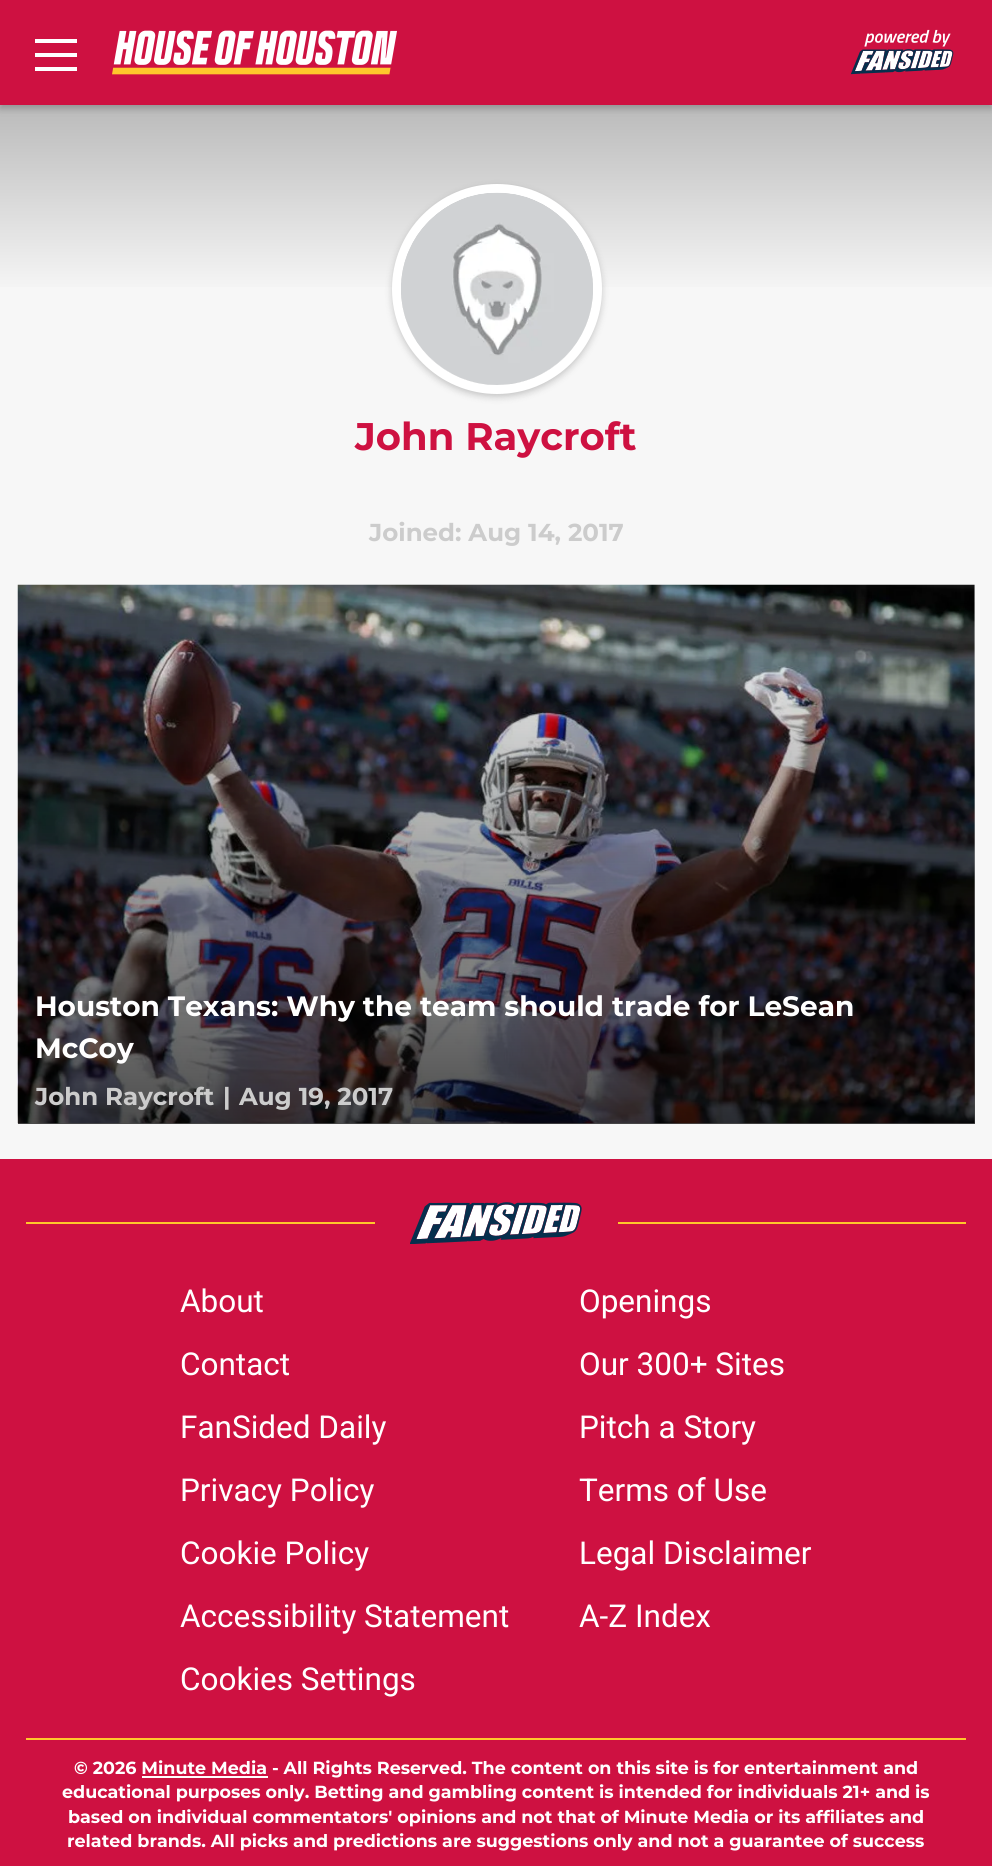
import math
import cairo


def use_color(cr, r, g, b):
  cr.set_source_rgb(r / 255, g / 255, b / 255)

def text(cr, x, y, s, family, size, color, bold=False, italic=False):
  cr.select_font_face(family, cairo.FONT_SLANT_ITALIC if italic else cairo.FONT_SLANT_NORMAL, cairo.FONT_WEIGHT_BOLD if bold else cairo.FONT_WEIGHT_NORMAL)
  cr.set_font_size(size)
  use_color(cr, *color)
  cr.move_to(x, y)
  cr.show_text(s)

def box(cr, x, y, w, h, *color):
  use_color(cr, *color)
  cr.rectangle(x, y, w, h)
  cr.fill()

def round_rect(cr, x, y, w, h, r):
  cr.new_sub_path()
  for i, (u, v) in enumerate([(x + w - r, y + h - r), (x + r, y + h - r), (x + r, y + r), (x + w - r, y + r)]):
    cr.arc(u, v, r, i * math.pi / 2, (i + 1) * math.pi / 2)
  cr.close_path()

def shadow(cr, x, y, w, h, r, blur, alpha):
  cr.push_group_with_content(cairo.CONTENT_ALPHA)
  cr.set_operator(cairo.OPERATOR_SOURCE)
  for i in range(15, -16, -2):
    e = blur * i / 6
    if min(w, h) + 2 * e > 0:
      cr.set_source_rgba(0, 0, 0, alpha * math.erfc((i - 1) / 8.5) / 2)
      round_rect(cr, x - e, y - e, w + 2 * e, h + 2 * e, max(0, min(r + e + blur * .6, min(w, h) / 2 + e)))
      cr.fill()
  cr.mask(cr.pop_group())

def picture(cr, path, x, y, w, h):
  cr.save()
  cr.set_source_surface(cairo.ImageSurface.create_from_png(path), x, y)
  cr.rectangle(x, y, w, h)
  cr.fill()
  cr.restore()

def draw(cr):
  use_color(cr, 247, 247, 247)
  cr.paint()
  gradient = cairo.LinearGradient(496, 298, 496, 0)
  gradient.add_color_stop_rgba(0, 0.973, 0.973, 0.973, 1)
  gradient.add_color_stop_rgba(1, 0.6, 0.6, 0.6, 1)
  cr.set_source(gradient)
  cr.rectangle(0, 105, 992, 182)
  cr.fill()
  use_color(cr, 0, 0, 0)
  shadow(cr, 0, 4, 992, 105, 0, 3.5, 0.2)
  box(cr, 0, 0, 992, 105, 206, 17, 65)
  box(cr, 35, 39, 42, 4, 255, 255, 255)
  box(cr, 35, 53, 42, 4, 255, 255, 255)
  box(cr, 35, 67, 42, 4, 255, 255, 255)
  picture(cr, "img_01.png", 112, 30, 285, 45)
  picture(cr, "img_02.png", 850, 29, 104, 46)
  use_color(cr, 0, 0, 0)
  shadow(cr, 392, 187, 210, 210, 105, 3.5, 0.2)
  cr.arc(497, 289, 100.5, 0, 2 * math.pi)
  use_color(cr, 255, 255, 255)
  cr.set_line_width(9)
  cr.stroke()
  use_color(cr, 247, 247, 247)
  cr.arc(497, 289, 96, 0, 2 * math.pi)
  cr.fill()
  picture(cr, "img_03.png", 401, 192, 192, 193)
  picture(cr, "img_04.png", 17, 584, 958, 540)
  gradient = cairo.LinearGradient(496, 1124, 496, 585)
  gradient.add_color_stop_rgba(0, 0, 0, 0, 0.7)
  gradient.add_color_stop_rgba(1, 0, 0, 0, 0)
  cr.set_source(gradient)
  cr.rectangle(18, 602, 957, 522)
  cr.fill()
  box(cr, 0, 1159, 992, 707, 206, 17, 65)
  box(cr, 26, 1222, 349, 2, 255, 199, 44)
  picture(cr, "img_05.png", 410, 1202, 172, 42)
  box(cr, 618, 1222, 348, 2, 255, 199, 44)
  box(cr, 26, 1738, 940, 2, 255, 199, 44)
  box(cr, 142, 1776, 126, 2, 255, 255, 255)
  text(cr, 355, 450, "John Raycroft", "Montserrat", 38.5, (206, 17, 65), bold=True)
  text(cr, 369, 541, "Joined: Aug 14, 2017", "Montserrat", 24.5, (204, 204, 204), bold=True)
  text(cr, 35, 1016, "Houston Texans: Why the team should trade for LeSean", "Montserrat", 28, (255, 255, 255), bold=True)
  text(cr, 35, 1058, "McCoy", "Montserrat", 28, (255, 255, 255), bold=True)
  text(cr, 35, 1105, "John Raycroft", "Montserrat", 24.5, (204, 204, 204), bold=True)
  text(cr, 223, 1105, "|", "Montserrat", 24.5, (204, 204, 204), bold=True)
  text(cr, 239, 1105, "Aug 19, 2017", "Montserrat", 24.5, (204, 204, 204), bold=True)
  text(cr, 180, 1312, "About", "Roboto", 31.5, (255, 255, 255))
  text(cr, 579, 1312, "Openings", "Roboto", 31.5, (255, 255, 255))
  text(cr, 180, 1375, "Contact", "Roboto", 31.5, (255, 255, 255))
  text(cr, 579, 1375, "Our 300+ Sites", "Roboto", 31.5, (255, 255, 255))
  text(cr, 180, 1438, "FanSided Daily", "Roboto", 31.5, (255, 255, 255))
  text(cr, 579, 1438, "Pitch a Story", "Roboto", 31.5, (255, 255, 255))
  text(cr, 180, 1501, "Privacy Policy", "Roboto", 31.5, (255, 255, 255))
  text(cr, 579, 1501, "Terms of Use", "Roboto", 31.5, (255, 255, 255))
  text(cr, 180, 1564, "Cookie Policy", "Roboto", 31.5, (255, 255, 255))
  text(cr, 579, 1564, "Legal Disclaimer", "Roboto", 31.5, (255, 255, 255))
  text(cr, 180, 1627, "Accessibility Statement", "Roboto", 31.5, (255, 255, 255))
  text(cr, 579, 1627, "A-Z Index", "Roboto", 31.5, (255, 255, 255))
  text(cr, 180, 1690, "Cookies Settings", "Roboto", 31.5, (255, 255, 255))
  text(cr, 74, 1774, "© 2026 Minute Media - All Rights Reserved. The content on this site is for entertainment and", "Montserrat", 17.5, (255, 255, 255), bold=True)
  text(cr, 62, 1798, "educational purposes only. Betting and gambling content is intended for individuals 21+ and is", "Montserrat", 17.5, (255, 255, 255), bold=True)
  text(cr, 68, 1823, "based on individual commentators' opinions and not that of Minute Media or its affiliates and", "Montserrat", 17.5, (255, 255, 255), bold=True)
  text(cr, 67, 1847, "related brands. All picks and predictions are suggestions only and not a guarantee of success", "Montserrat", 17.5, (255, 255, 255), bold=True)


surface = cairo.ImageSurface(cairo.FORMAT_RGB24, 992, 1866)
cr = cairo.Context(surface)
options = cairo.FontOptions()
options.set_hint_metrics(cairo.HINT_METRICS_OFF)
options.set_hint_style(cairo.HINT_STYLE_NONE)
cr.set_font_options(options)
cr.set_miter_limit(4)
draw(cr)
surface.write_to_png("out.png")
